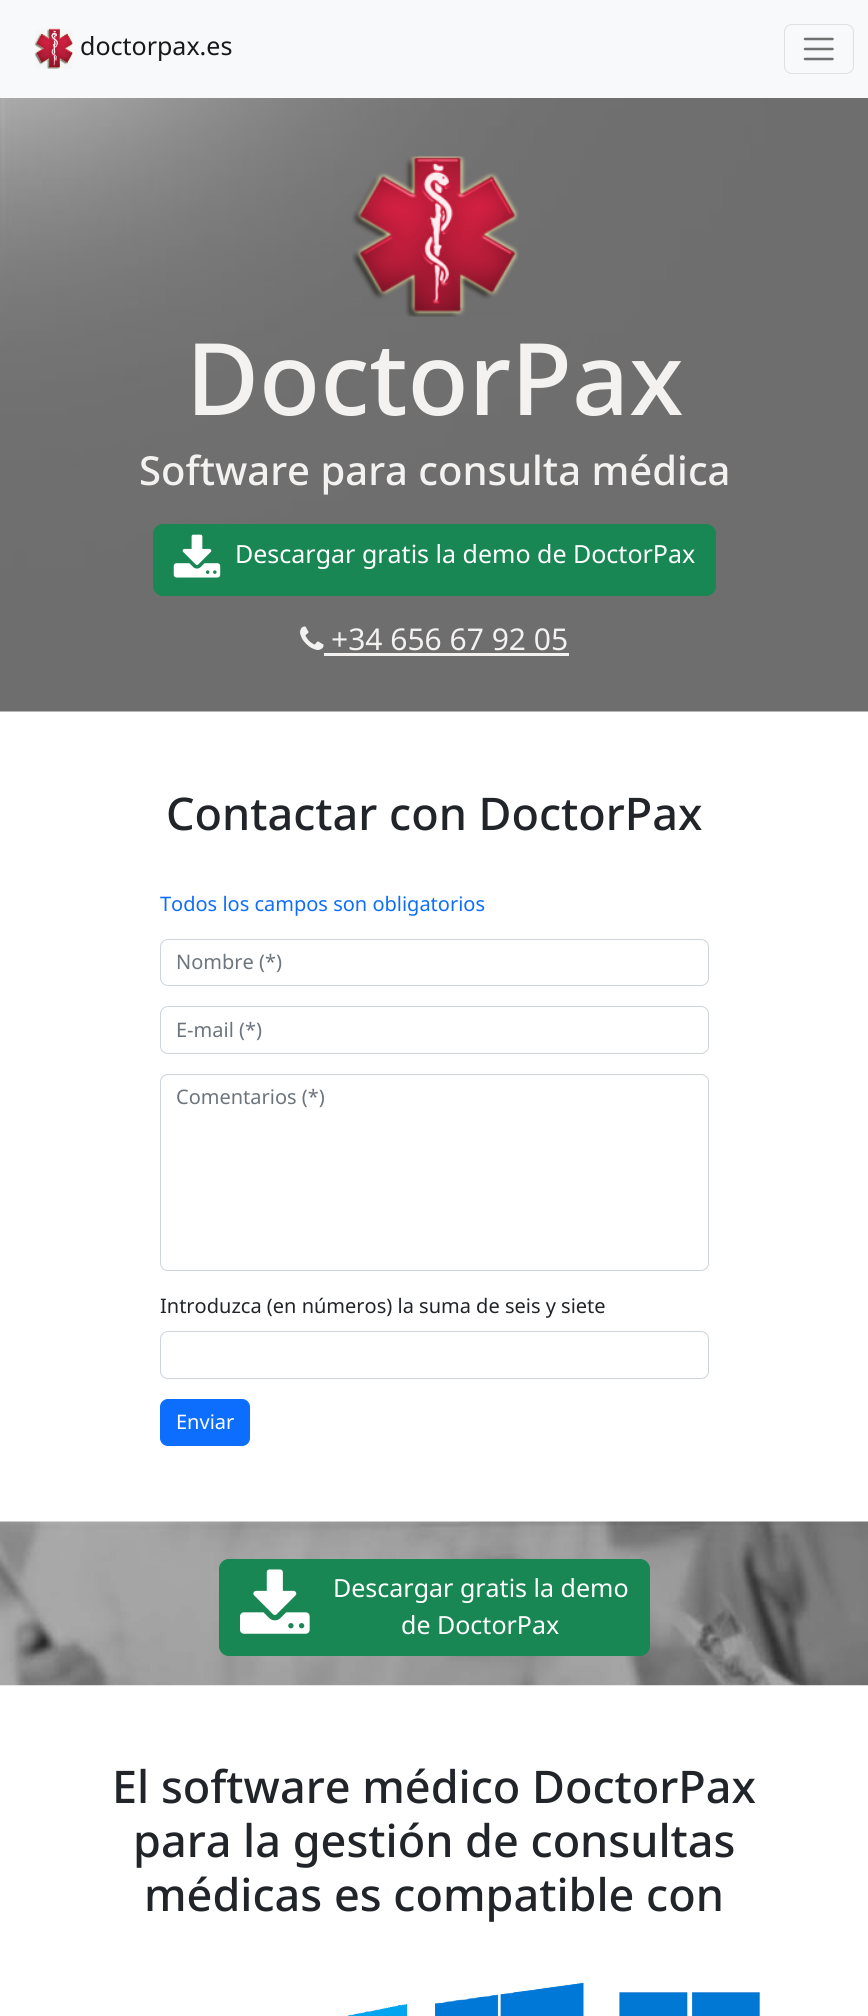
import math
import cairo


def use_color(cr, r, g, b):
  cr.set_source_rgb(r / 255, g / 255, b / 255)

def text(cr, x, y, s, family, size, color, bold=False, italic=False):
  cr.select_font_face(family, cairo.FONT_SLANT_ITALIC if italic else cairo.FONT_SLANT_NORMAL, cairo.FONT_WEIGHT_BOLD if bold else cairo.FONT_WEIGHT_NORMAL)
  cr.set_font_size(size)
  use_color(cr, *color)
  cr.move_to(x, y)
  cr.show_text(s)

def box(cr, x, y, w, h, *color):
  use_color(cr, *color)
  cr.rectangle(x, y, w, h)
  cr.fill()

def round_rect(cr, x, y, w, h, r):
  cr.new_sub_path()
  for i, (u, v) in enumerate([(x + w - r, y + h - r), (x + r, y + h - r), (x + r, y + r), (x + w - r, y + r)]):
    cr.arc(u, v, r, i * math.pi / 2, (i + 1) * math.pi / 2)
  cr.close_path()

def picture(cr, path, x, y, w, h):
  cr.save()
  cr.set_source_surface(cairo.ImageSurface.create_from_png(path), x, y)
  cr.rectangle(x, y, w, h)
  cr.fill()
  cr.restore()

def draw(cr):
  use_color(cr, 255, 255, 255)
  cr.paint()
  box(cr, 0, 0, 868, 98, 248, 249, 250)
  picture(cr, "img_01.png", 34, 28, 39, 41)
  round_rect(cr, 784.5, 24.5, 69, 49, 7.5)
  use_color(cr, 223, 224, 225)
  cr.set_line_width(1)
  cr.stroke()
  cr.new_path()
  cr.move_to(805, 39)
  cr.line_to(832.5, 39)
  cr.move_to(805, 49)
  cr.line_to(832.5, 49)
  cr.move_to(805, 59)
  cr.line_to(832.5, 59)
  use_color(cr, 112, 112, 113)
  cr.set_line_width(2.5)
  cr.set_line_cap(cairo.LINE_CAP_ROUND)
  cr.stroke()
  picture(cr, "img_02.png", 0, 98, 868, 614)
  picture(cr, "img_03.png", 352, 156, 167, 161)
  use_color(cr, 25, 135, 84)
  round_rect(cr, 153.5, 524.5, 562, 71, 9.5)
  cr.fill_preserve()
  cr.set_line_width(1)
  cr.set_line_cap(cairo.LINE_CAP_BUTT)
  cr.stroke()
  picture(cr, "img_04.png", 173, 534, 48, 44)
  picture(cr, "img_05.png", 300, 626, 24, 24)
  box(cr, 324, 653, 245, 3, 244, 241, 241)
  round_rect(cr, 160.5, 939.5, 548, 46, 7.5)
  use_color(cr, 206, 212, 218)
  cr.stroke()
  round_rect(cr, 160.5, 1006.5, 548, 47, 7.5)
  cr.stroke()
  round_rect(cr, 160.5, 1074.5, 548, 196, 7.5)
  cr.stroke()
  round_rect(cr, 160.5, 1331.5, 548, 47, 7.5)
  cr.stroke()
  use_color(cr, 13, 110, 253)
  round_rect(cr, 160.5, 1399.5, 89, 46, 7.5)
  cr.fill_preserve()
  cr.stroke()
  picture(cr, "img_06.png", 0, 1521, 868, 165)
  use_color(cr, 25, 135, 84)
  round_rect(cr, 219.5, 1559.5, 430, 96, 9.5)
  cr.fill_preserve()
  cr.stroke()
  picture(cr, "img_07.png", 240, 1569, 70, 65)
  picture(cr, "img_08.png", 347, 2004, 61, 12)
  picture(cr, "img_09.png", 435, 1982, 150, 34)
  picture(cr, "img_10.png", 619, 1992, 141, 24)
  text(cr, 80, 55, "doctorpax.es", "Noto Sans", 25, (25, 25, 25))
  text(cr, 186, 415, "DoctorPax", "Noto Sans Medium", 100, (244, 241, 241))
  text(cr, 139, 485, "Software para consulta médica", "Noto Sans Medium", 40, (244, 241, 241))
  text(cr, 235, 563, "Descargar gratis la demo de DoctorPax", "Noto Sans", 25, (255, 255, 255))
  text(cr, 331, 650, "+34 656 67 92 05", "Noto Sans", 30, (244, 241, 241))
  text(cr, 166, 830, "Contactar con DoctorPax", "Noto Sans Medium", 45, (33, 37, 41))
  text(cr, 160, 911, "Todos los campos son obligatorios", "Noto Sans", 20, (13, 110, 253))
  text(cr, 176, 969, "Nombre (*)", "Noto Sans", 20, (108, 117, 125))
  text(cr, 176, 1037, "E-mail (*)", "Noto Sans", 20, (108, 117, 125))
  text(cr, 176, 1104, "Comentarios (*)", "Noto Sans", 20, (108, 117, 125))
  text(cr, 160, 1313, "Introduzca (en números) la suma de seis y siete", "Noto Sans", 20, (33, 37, 41))
  text(cr, 176, 1429, "Enviar", "Noto Sans", 20, (255, 255, 255))
  text(cr, 333, 1597, "Descargar gratis la demo", "Noto Sans", 25, (255, 255, 255))
  text(cr, 401, 1634, "de DoctorPax", "Noto Sans", 25, (255, 255, 255))
  text(cr, 112, 1803, "El software médico DoctorPax", "Noto Sans Medium", 45, (33, 37, 41))
  text(cr, 133, 1857, "para la gestión de consultas", "Noto Sans Medium", 45, (33, 37, 41))
  text(cr, 144, 1911, "médicas es compatible con", "Noto Sans Medium", 45, (33, 37, 41))


surface = cairo.ImageSurface(cairo.FORMAT_RGB24, 868, 2016)
cr = cairo.Context(surface)
options = cairo.FontOptions()
options.set_hint_metrics(cairo.HINT_METRICS_OFF)
options.set_hint_style(cairo.HINT_STYLE_NONE)
cr.set_font_options(options)
cr.set_miter_limit(4)
draw(cr)
surface.write_to_png("out.png")
